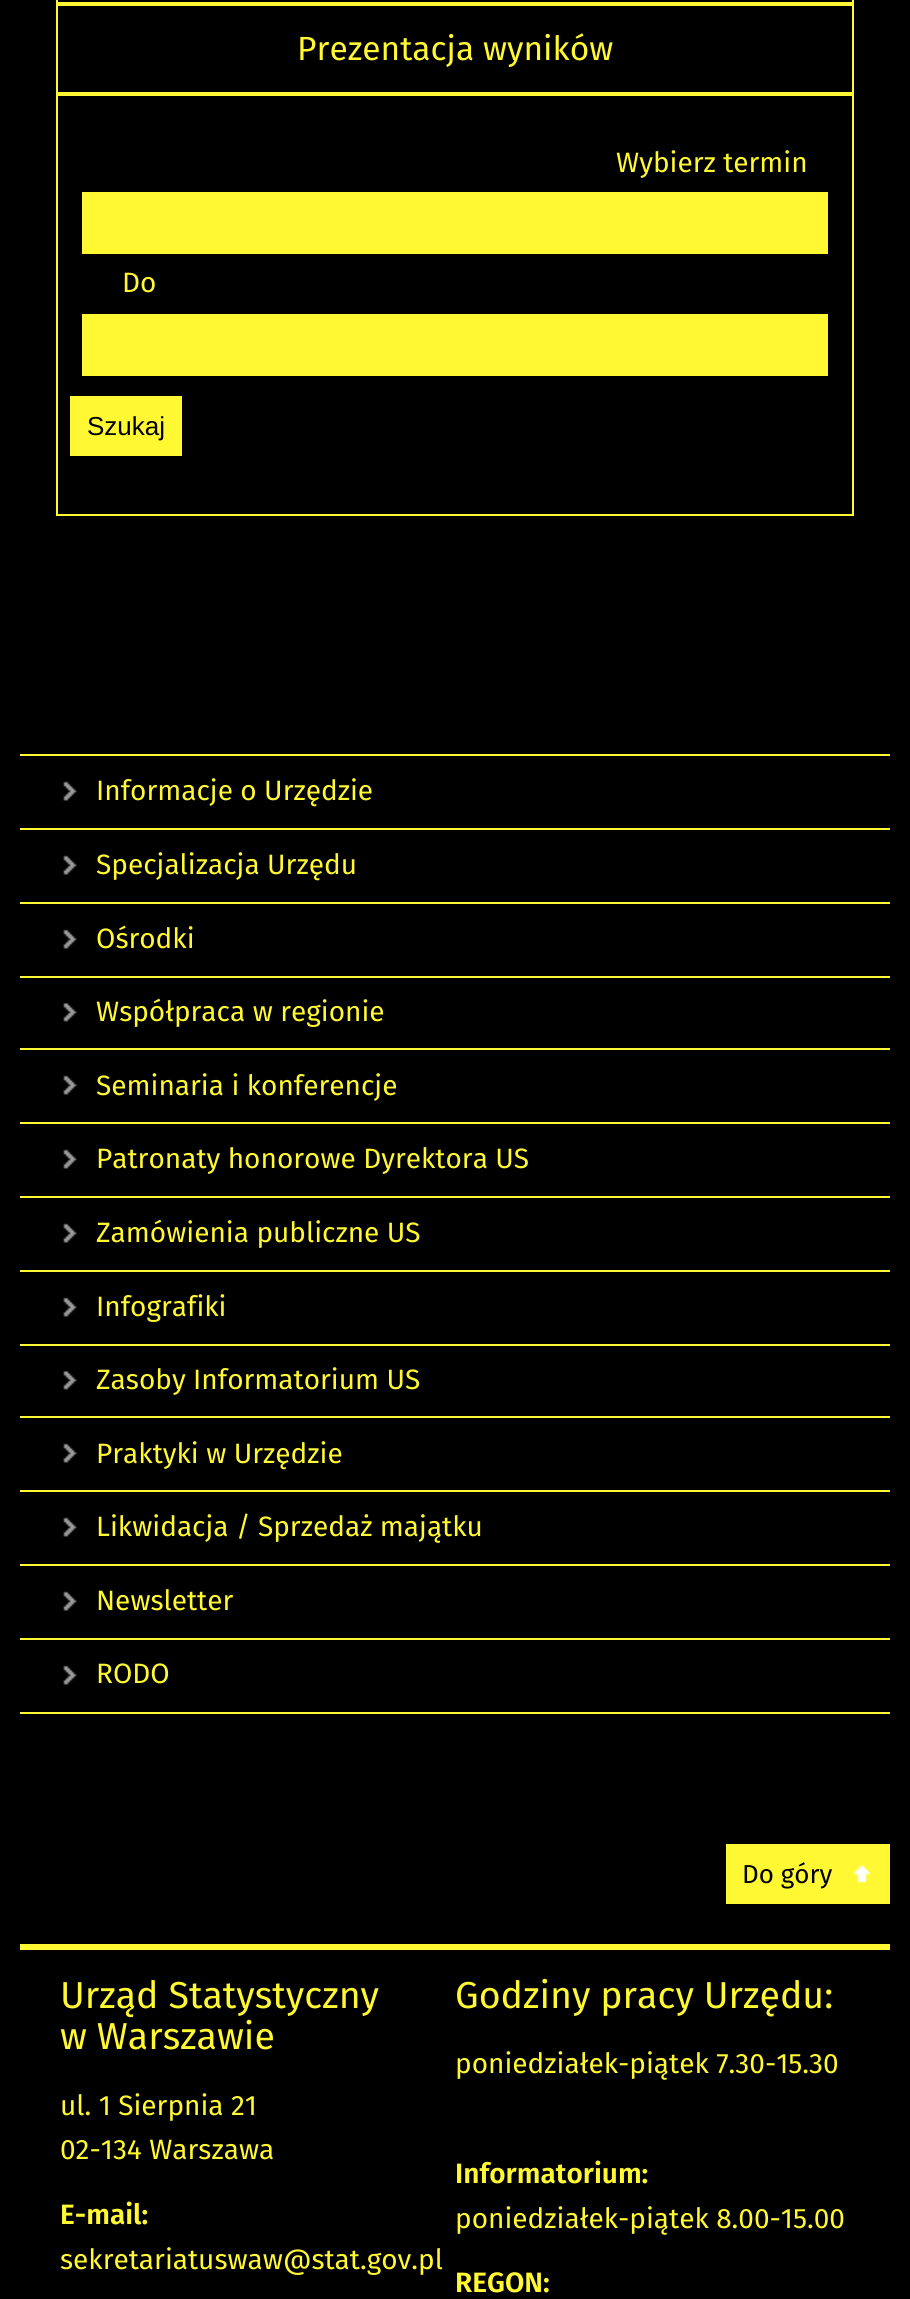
import math
import cairo


def use_color(cr, r, g, b):
  cr.set_source_rgb(r / 255, g / 255, b / 255)

def text(cr, x, y, s, family, size, color, bold=False, italic=False):
  cr.select_font_face(family, cairo.FONT_SLANT_ITALIC if italic else cairo.FONT_SLANT_NORMAL, cairo.FONT_WEIGHT_BOLD if bold else cairo.FONT_WEIGHT_NORMAL)
  cr.set_font_size(size)
  use_color(cr, *color)
  cr.move_to(x, y)
  cr.show_text(s)

def box(cr, x, y, w, h, *color):
  use_color(cr, *color)
  cr.rectangle(x, y, w, h)
  cr.fill()

def picture(cr, path, x, y, w, h):
  cr.save()
  cr.set_source_surface(cairo.ImageSurface.create_from_png(path), x, y)
  cr.rectangle(x, y, w, h)
  cr.fill()
  cr.restore()

def draw(cr):
  use_color(cr, 0, 0, 0)
  cr.paint()
  cr.rectangle(57, -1, 796, 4)
  use_color(cr, 255, 248, 50)
  cr.stroke()
  cr.rectangle(57, 5, 796, 88)
  cr.stroke()
  cr.rectangle(57, 95, 796, 420)
  cr.stroke()
  box(cr, 82, 192, 746, 62, 255, 248, 50)
  box(cr, 82, 314, 746, 62, 255, 248, 50)
  box(cr, 70, 396, 112, 60, 255, 248, 50)
  picture(cr, "img_01.png", 63, 781, 14, 20)
  box(cr, 20, 754, 870, 2, 255, 248, 50)
  picture(cr, "img_01.png", 63, 855, 14, 20)
  box(cr, 20, 828, 870, 2, 255, 248, 50)
  picture(cr, "img_01.png", 63, 929, 14, 20)
  box(cr, 20, 902, 870, 2, 255, 248, 50)
  picture(cr, "img_02.png", 63, 1003, 14, 19)
  box(cr, 20, 976, 870, 2, 255, 248, 50)
  picture(cr, "img_01.png", 63, 1075, 14, 20)
  box(cr, 20, 1048, 870, 2, 255, 248, 50)
  picture(cr, "img_01.png", 63, 1149, 14, 20)
  box(cr, 20, 1122, 870, 2, 255, 248, 50)
  picture(cr, "img_01.png", 63, 1223, 14, 20)
  box(cr, 20, 1196, 870, 2, 255, 248, 50)
  picture(cr, "img_01.png", 63, 1297, 14, 20)
  box(cr, 20, 1270, 870, 2, 255, 248, 50)
  picture(cr, "img_02.png", 63, 1371, 14, 19)
  box(cr, 20, 1344, 870, 2, 255, 248, 50)
  picture(cr, "img_01.png", 63, 1443, 14, 20)
  box(cr, 20, 1416, 870, 2, 255, 248, 50)
  picture(cr, "img_01.png", 63, 1517, 14, 20)
  box(cr, 20, 1490, 870, 2, 255, 248, 50)
  picture(cr, "img_01.png", 63, 1591, 14, 20)
  box(cr, 20, 1564, 870, 2, 255, 248, 50)
  picture(cr, "img_01.png", 63, 1665, 14, 20)
  box(cr, 20, 1638, 870, 2, 255, 248, 50)
  box(cr, 20, 1712, 870, 2, 255, 248, 50)
  box(cr, 726, 1844, 164, 60, 255, 248, 50)
  picture(cr, "img_03.png", 853, 1865, 18, 18)
  box(cr, 20, 1944, 870, 6, 255, 248, 50)
  text(cr, 297, 60, "Prezentacja wyników", "Fira Sans", 33.5, (255, 248, 50))
  text(cr, 616, 172, "Wybierz termin", "Fira Sans", 28, (255, 248, 50))
  text(cr, 122, 292, "Do", "Fira Sans", 28, (255, 248, 50))
  text(cr, 87, 435, "Szukaj", "Liberation Sans", 26, (0, 0, 0))
  text(cr, 96, 800, "Informacje o Urzędzie", "Fira Sans", 28, (255, 248, 50))
  text(cr, 96, 874, "Specjalizacja Urzędu", "Fira Sans", 28, (255, 248, 50))
  text(cr, 96, 948, "Ośrodki", "Fira Sans", 28, (255, 248, 50))
  text(cr, 96, 1021, "Współpraca w regionie", "Fira Sans", 28, (255, 248, 50))
  text(cr, 96, 1095, "Seminaria i konferencje", "Fira Sans", 28, (255, 248, 50))
  text(cr, 96, 1168, "Patronaty honorowe Dyrektora US", "Fira Sans", 28, (255, 248, 50))
  text(cr, 96, 1242, "Zamówienia publiczne US", "Fira Sans", 28, (255, 248, 50))
  text(cr, 96, 1316, "Infografiki", "Fira Sans", 28, (255, 248, 50))
  text(cr, 96, 1389, "Zasoby Informatorium US", "Fira Sans", 28, (255, 248, 50))
  text(cr, 96, 1463, "Praktyki w Urzędzie", "Fira Sans", 28, (255, 248, 50))
  text(cr, 96, 1536, "Likwidacja / Sprzedaż majątku", "Fira Sans", 28, (255, 248, 50))
  text(cr, 96, 1610, "Newsletter", "Fira Sans", 28, (255, 248, 50))
  text(cr, 96, 1683, "RODO", "Fira Sans", 28, (255, 248, 50))
  text(cr, 742, 1883, "Do góry", "Fira Sans", 26, (0, 0, 0))
  text(cr, 60, 2008, "Urząd Statystyczny", "Fira Sans", 37.5, (255, 248, 50))
  text(cr, 60, 2049, "w Warszawie", "Fira Sans", 37.5, (255, 248, 50))
  text(cr, 60, 2115, "ul. 1 Sierpnia 21", "Fira Sans", 28, (255, 248, 50))
  text(cr, 60, 2159, "02-134 Warszawa", "Fira Sans", 28, (255, 248, 50))
  text(cr, 60, 2224, "E-mail:", "Fira Sans SemiBold", 28, (255, 248, 50))
  text(cr, 60, 2269, "sekretariatuswaw@stat.gov.pl", "Fira Sans", 28, (255, 248, 50))
  text(cr, 455, 2008, "Godziny pracy Urzędu:", "Fira Sans", 37.5, (255, 248, 50))
  text(cr, 455, 2073, "poniedziałek-piątek 7.30-15.30", "Fira Sans", 28, (255, 248, 50))
  text(cr, 455, 2183, "Informatorium:", "Fira Sans SemiBold", 28, (255, 248, 50))
  text(cr, 455, 2228, "poniedziałek-piątek 8.00-15.00", "Fira Sans", 28, (255, 248, 50))
  text(cr, 455, 2292, "REGON:", "Fira Sans SemiBold", 28, (255, 248, 50))


surface = cairo.ImageSurface(cairo.FORMAT_RGB24, 910, 2299)
cr = cairo.Context(surface)
options = cairo.FontOptions()
options.set_hint_metrics(cairo.HINT_METRICS_OFF)
options.set_hint_style(cairo.HINT_STYLE_NONE)
cr.set_font_options(options)
cr.set_miter_limit(4)
draw(cr)
surface.write_to_png("out.png")
